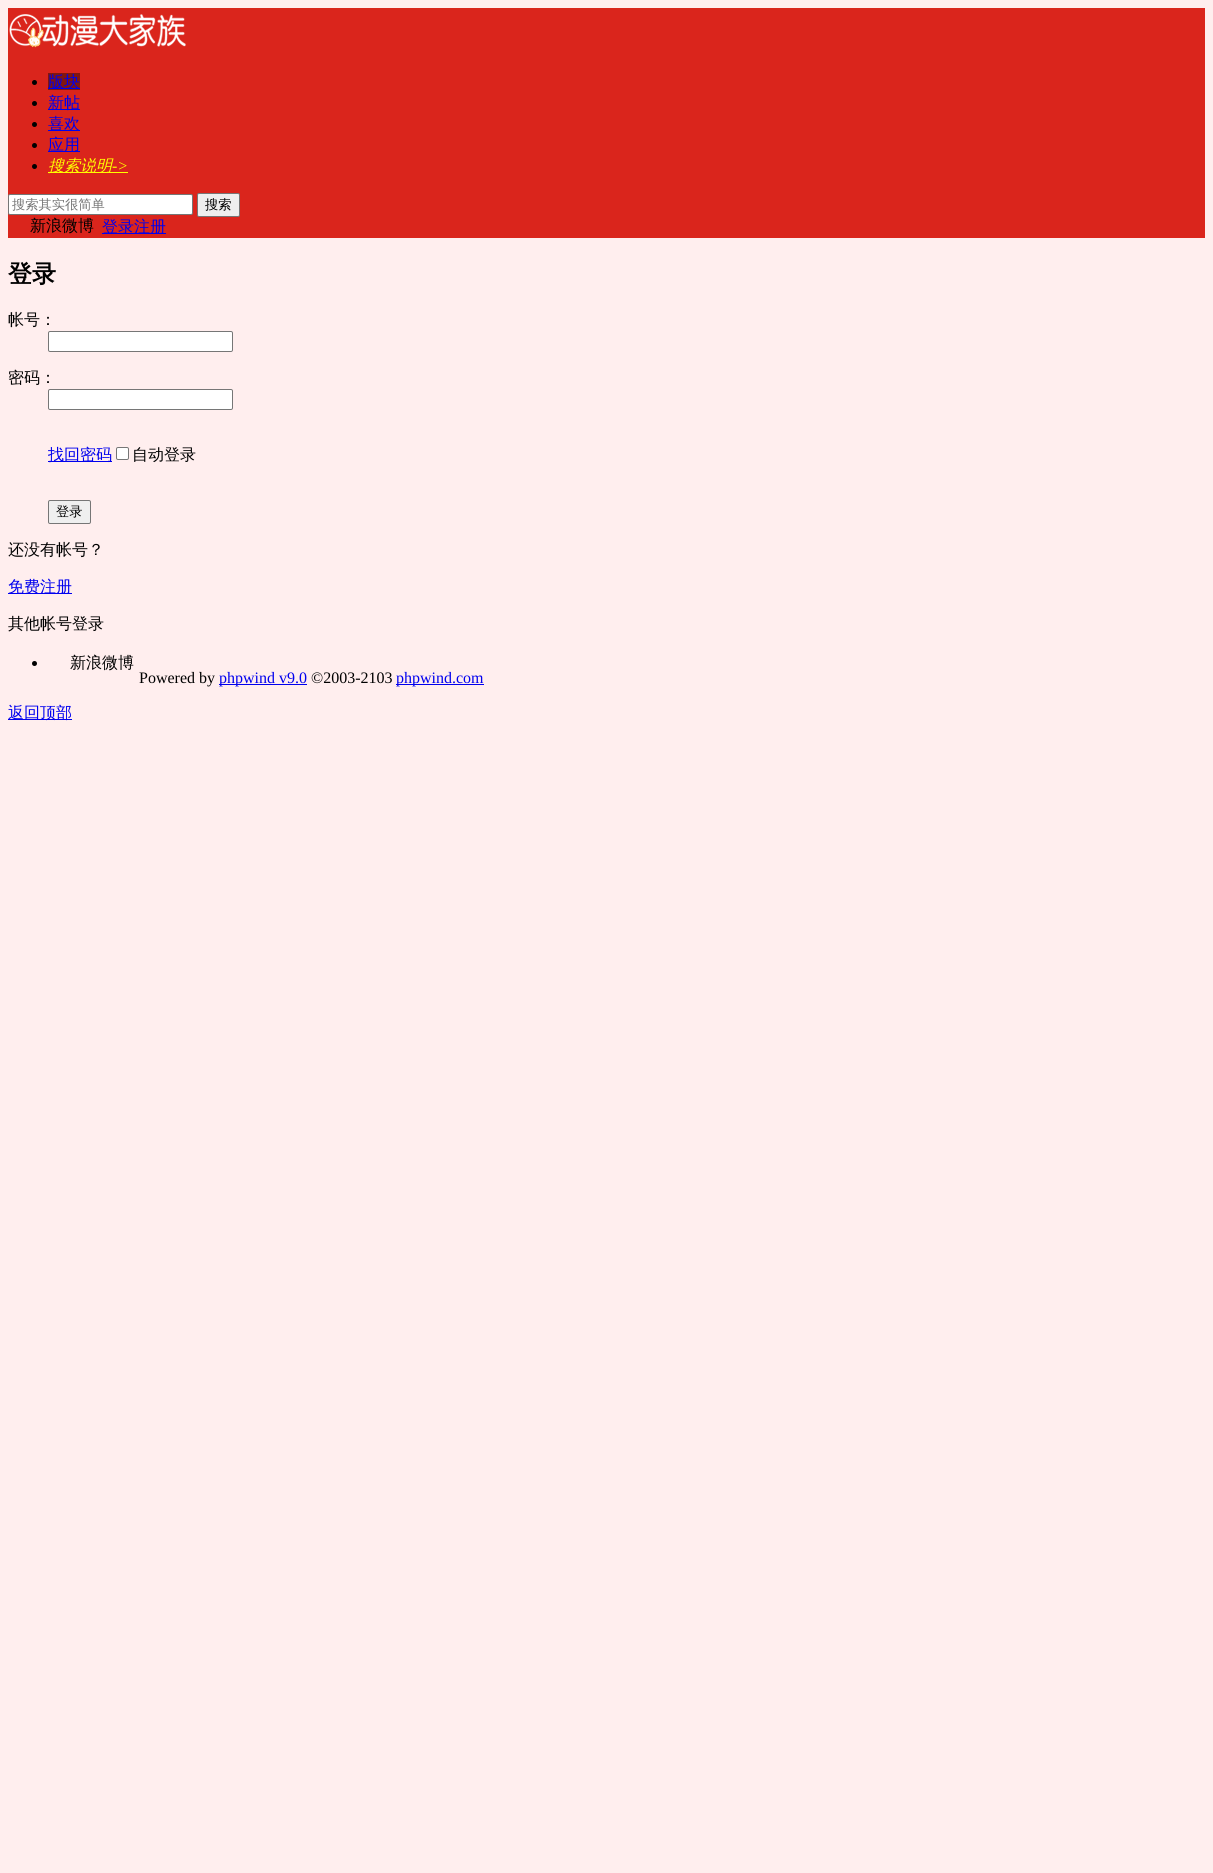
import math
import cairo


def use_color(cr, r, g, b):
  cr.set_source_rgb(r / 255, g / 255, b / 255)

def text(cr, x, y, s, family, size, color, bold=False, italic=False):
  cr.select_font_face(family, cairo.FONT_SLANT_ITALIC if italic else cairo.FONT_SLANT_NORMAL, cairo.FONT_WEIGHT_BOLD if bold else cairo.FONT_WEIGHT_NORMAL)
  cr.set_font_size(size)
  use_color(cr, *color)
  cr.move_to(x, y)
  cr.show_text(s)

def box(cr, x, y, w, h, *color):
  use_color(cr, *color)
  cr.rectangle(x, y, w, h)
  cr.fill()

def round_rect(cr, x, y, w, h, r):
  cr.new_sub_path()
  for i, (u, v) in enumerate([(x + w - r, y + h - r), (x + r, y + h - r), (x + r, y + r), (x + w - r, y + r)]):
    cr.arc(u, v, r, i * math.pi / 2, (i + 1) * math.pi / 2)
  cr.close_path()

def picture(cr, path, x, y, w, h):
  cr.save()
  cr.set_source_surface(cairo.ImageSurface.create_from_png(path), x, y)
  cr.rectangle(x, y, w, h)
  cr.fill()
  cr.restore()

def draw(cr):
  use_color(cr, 255, 238, 238)
  cr.paint()
  box(cr, 8, 8, 1197, 230, 218, 37, 28)
  picture(cr, "img_01.png", 9, 14, 177, 34)
  use_color(cr, 0, 0, 0)
  cr.arc(34.5, 82.5, 2.5, 0, 2 * math.pi)
  cr.fill()
  box(cr, 48, 73, 32, 17, 128, 22, 16)
  box(cr, 48, 88, 32, 1, 0, 0, 238)
  use_color(cr, 0, 0, 0)
  cr.arc(34.5, 103.5, 2.5, 0, 2 * math.pi)
  cr.fill()
  box(cr, 48, 109, 32, 1, 0, 0, 238)
  use_color(cr, 0, 0, 0)
  cr.arc(34.5, 124.5, 2.5, 0, 2 * math.pi)
  cr.fill()
  box(cr, 48, 130, 32, 1, 0, 0, 238)
  use_color(cr, 0, 0, 0)
  cr.arc(34.5, 145.5, 2.5, 0, 2 * math.pi)
  cr.fill()
  box(cr, 48, 151, 32, 1, 0, 0, 238)
  use_color(cr, 0, 0, 0)
  cr.arc(34.5, 166.5, 2.5, 0, 2 * math.pi)
  cr.fill()
  box(cr, 48, 172, 80, 1, 255, 255, 0)
  use_color(cr, 255, 255, 255)
  round_rect(cr, 8.5, 194.5, 184, 20, 1.5)
  cr.fill_preserve()
  use_color(cr, 118, 118, 118)
  cr.set_line_width(1)
  cr.stroke()
  use_color(cr, 239, 239, 239)
  round_rect(cr, 197.5, 193.5, 42, 23, 1.5)
  cr.fill_preserve()
  use_color(cr, 118, 118, 118)
  cr.stroke()
  box(cr, 102, 233, 64, 1, 0, 0, 238)
  use_color(cr, 255, 255, 255)
  round_rect(cr, 48.5, 331.5, 184, 20, 1.5)
  cr.fill_preserve()
  use_color(cr, 118, 118, 118)
  cr.stroke()
  use_color(cr, 255, 255, 255)
  round_rect(cr, 48.5, 389.5, 184, 20, 1.5)
  cr.fill_preserve()
  use_color(cr, 118, 118, 118)
  cr.stroke()
  box(cr, 48, 461, 64, 1, 0, 0, 238)
  use_color(cr, 255, 255, 255)
  round_rect(cr, 116.5, 447.5, 12, 12, 1.5)
  cr.fill_preserve()
  use_color(cr, 118, 118, 118)
  cr.stroke()
  use_color(cr, 239, 239, 239)
  round_rect(cr, 48.5, 500.5, 42, 23, 1.5)
  cr.fill_preserve()
  use_color(cr, 118, 118, 118)
  cr.stroke()
  box(cr, 8, 593, 64, 1, 0, 0, 238)
  use_color(cr, 0, 0, 0)
  cr.arc(34.5, 663.5, 2.5, 0, 2 * math.pi)
  cr.fill()
  box(cr, 219, 684, 88, 1, 0, 0, 238)
  box(cr, 396, 684, 88, 1, 0, 0, 238)
  box(cr, 8, 719, 64, 1, 0, 0, 238)
  text(cr, 48, 87, "版块", "WenQuanYi Zen Hei Medium", 16, (0, 0, 238))
  text(cr, 48, 108, "新帖", "WenQuanYi Zen Hei Medium", 16, (0, 0, 238))
  text(cr, 48, 129, "喜欢", "WenQuanYi Zen Hei Medium", 16, (0, 0, 238))
  text(cr, 48, 150, "应用", "WenQuanYi Zen Hei Medium", 16, (0, 0, 238))
  text(cr, 48, 171, "搜索说明", "WenQuanYi Zen Hei Medium", 16, (255, 255, 0), italic=True)
  text(cr, 112, 171, "->", "Liberation Serif", 16, (255, 255, 0), italic=True)
  text(cr, 12, 209, "搜索其实很简单", "WenQuanYi Zen Hei Medium", 13.25, (117, 117, 117))
  text(cr, 205, 209, "搜索", "WenQuanYi Zen Hei Medium", 13.25, (0, 0, 0))
  text(cr, 30, 231, "新浪微博", "WenQuanYi Zen Hei Medium", 16, (0, 0, 0))
  text(cr, 102, 232, "登录注册", "WenQuanYi Zen Hei Medium", 16, (0, 0, 238))
  text(cr, 8, 282, "登录", "WenQuanYi Zen Hei", 24, (0, 0, 0), bold=True)
  text(cr, 8, 325, "帐号：", "WenQuanYi Zen Hei Medium", 16, (0, 0, 0))
  text(cr, 8, 383, "密码：", "WenQuanYi Zen Hei Medium", 16, (0, 0, 0))
  text(cr, 48, 460, "找回密码", "WenQuanYi Zen Hei Medium", 16, (0, 0, 238))
  text(cr, 132, 460, "自动登录", "WenQuanYi Zen Hei Medium", 16, (0, 0, 0))
  text(cr, 56, 516, "登录", "WenQuanYi Zen Hei Medium", 13.25, (0, 0, 0))
  text(cr, 8, 555, "还没有帐号？", "WenQuanYi Zen Hei Medium", 16, (0, 0, 0))
  text(cr, 8, 592, "免费注册", "WenQuanYi Zen Hei Medium", 16, (0, 0, 238))
  text(cr, 8, 629, "其他帐号登录", "WenQuanYi Zen Hei Medium", 16, (0, 0, 0))
  text(cr, 70, 668, "新浪微博", "WenQuanYi Zen Hei Medium", 16, (0, 0, 0))
  text(cr, 139, 683, "Powered by", "Liberation Serif", 16, (0, 0, 0))
  text(cr, 219, 683, "phpwind v9.0", "Liberation Serif", 16, (0, 0, 238))
  text(cr, 311, 683, "©2003-2103", "Liberation Serif", 16, (0, 0, 0))
  text(cr, 396, 683, "phpwind.com", "Liberation Serif", 16, (0, 0, 238))
  text(cr, 8, 718, "返回顶部", "WenQuanYi Zen Hei Medium", 16, (0, 0, 238))


surface = cairo.ImageSurface(cairo.FORMAT_RGB24, 1213, 1873)
cr = cairo.Context(surface)
options = cairo.FontOptions()
options.set_hint_metrics(cairo.HINT_METRICS_OFF)
options.set_hint_style(cairo.HINT_STYLE_NONE)
cr.set_font_options(options)
cr.set_miter_limit(4)
draw(cr)
surface.write_to_png("out.png")
